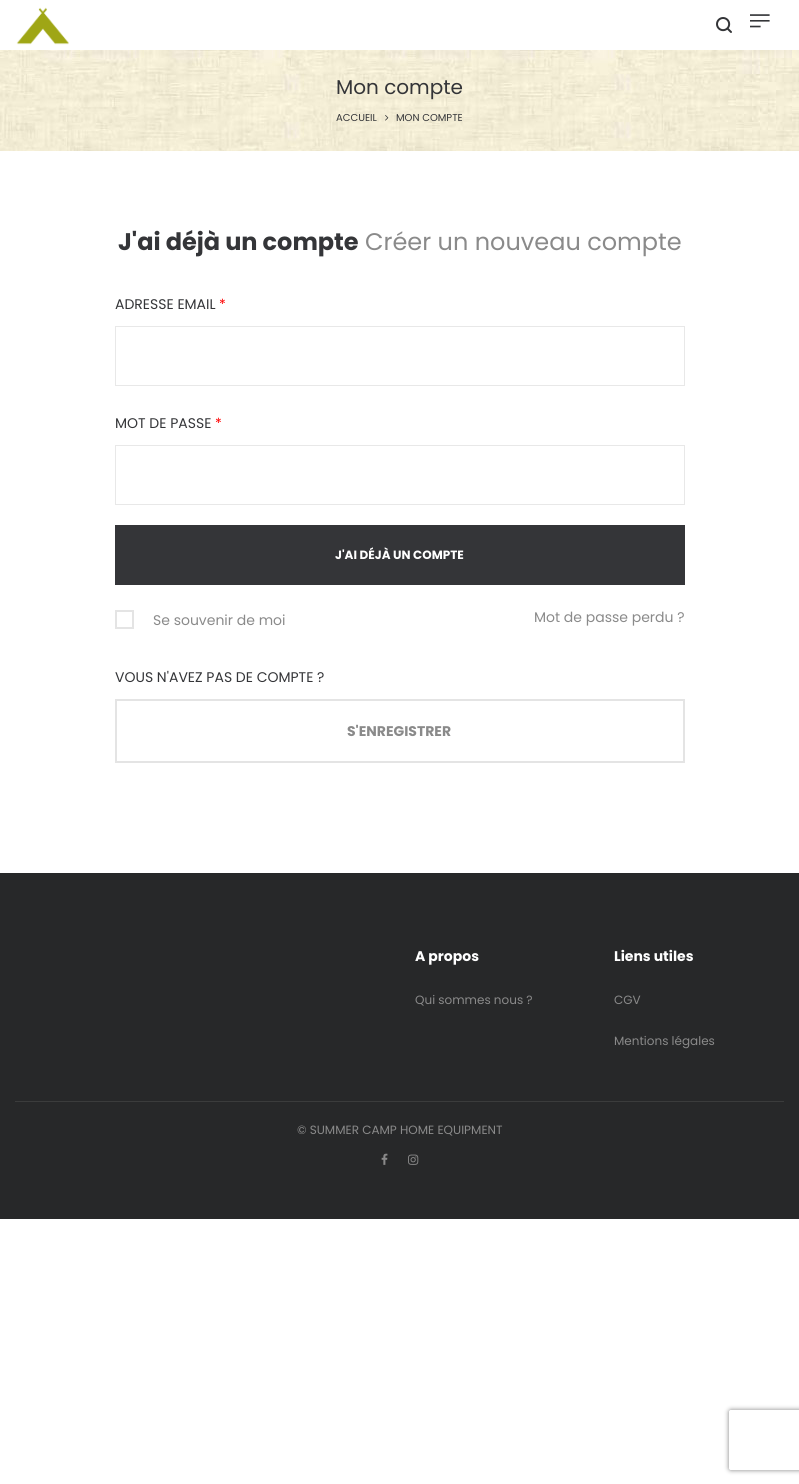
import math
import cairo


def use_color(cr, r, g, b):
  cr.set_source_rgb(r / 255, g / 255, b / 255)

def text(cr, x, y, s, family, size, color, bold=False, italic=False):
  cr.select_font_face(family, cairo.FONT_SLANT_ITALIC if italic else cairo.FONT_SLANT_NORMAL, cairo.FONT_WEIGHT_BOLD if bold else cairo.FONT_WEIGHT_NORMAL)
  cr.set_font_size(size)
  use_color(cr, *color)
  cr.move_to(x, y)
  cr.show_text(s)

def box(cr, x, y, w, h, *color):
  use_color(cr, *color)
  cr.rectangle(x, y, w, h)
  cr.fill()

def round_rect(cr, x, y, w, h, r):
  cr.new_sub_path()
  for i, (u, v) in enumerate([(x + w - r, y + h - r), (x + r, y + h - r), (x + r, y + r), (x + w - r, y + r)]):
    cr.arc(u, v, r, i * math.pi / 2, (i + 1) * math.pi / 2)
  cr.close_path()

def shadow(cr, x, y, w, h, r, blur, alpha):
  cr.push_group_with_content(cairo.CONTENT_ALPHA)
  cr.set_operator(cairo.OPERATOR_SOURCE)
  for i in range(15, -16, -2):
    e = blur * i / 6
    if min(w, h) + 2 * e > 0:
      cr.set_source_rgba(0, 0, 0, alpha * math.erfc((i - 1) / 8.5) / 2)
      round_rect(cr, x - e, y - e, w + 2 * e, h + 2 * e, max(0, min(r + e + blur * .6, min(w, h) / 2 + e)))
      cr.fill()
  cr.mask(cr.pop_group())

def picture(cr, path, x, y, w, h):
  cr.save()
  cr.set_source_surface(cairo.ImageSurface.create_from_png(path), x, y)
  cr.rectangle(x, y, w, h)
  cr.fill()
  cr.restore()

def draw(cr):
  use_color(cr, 255, 255, 255)
  cr.paint()
  picture(cr, "img_01.png", 16, 7, 53, 38)
  picture(cr, "img_02.png", 716, 17, 16, 16)
  picture(cr, "img_03.png", 750, 14, 20, 14)
  picture(cr, "img_04.png", 0, 50, 799, 101)
  picture(cr, "img_05.png", 385, 115, 4, 6)
  cr.rectangle(115.5, 326.5, 569, 59)
  use_color(cr, 232, 232, 232)
  cr.set_line_width(1)
  cr.stroke()
  cr.rectangle(115.5, 445.5, 569, 59)
  cr.stroke()
  box(cr, 115, 525, 570, 60, 52, 53, 56)
  cr.rectangle(116, 611, 17, 17)
  use_color(cr, 228, 228, 228)
  cr.set_line_width(2)
  cr.stroke()
  cr.rectangle(116, 700, 568, 62)
  cr.stroke()
  box(cr, 0, 873, 799, 346, 39, 40, 41)
  box(cr, 15, 1101, 769, 1, 59, 60, 60)
  picture(cr, "img_06.png", 381, 1153, 7, 12)
  picture(cr, "img_07.png", 408, 1154, 11, 11)
  cr.save()
  cr.set_fill_rule(cairo.FILL_RULE_EVEN_ODD)
  cr.new_path()
  cr.move_to(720, 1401)
  cr.line_to(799, 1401)
  cr.line_to(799, 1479)
  cr.line_to(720, 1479)
  cr.close_path()
  cr.move_to(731, 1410)
  cr.line_to(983, 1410)
  cr.curve_to(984, 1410, 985, 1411, 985, 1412)
  cr.line_to(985, 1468)
  cr.curve_to(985, 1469, 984, 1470, 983, 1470)
  cr.line_to(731, 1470)
  cr.curve_to(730, 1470, 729, 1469, 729, 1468)
  cr.line_to(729, 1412)
  cr.curve_to(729, 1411, 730, 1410, 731, 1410)
  cr.close_path()
  cr.clip()
  use_color(cr, 128, 128, 128)
  shadow(cr, 729, 1410, 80, 60, 2, 2.5, 1)
  cr.restore()
  text(cr, 336, 94, "Mon compte", "Poppins", 20, (52, 53, 56))
  text(cr, 336, 121, "ACCUEIL", "Poppins", 10, (52, 53, 56))
  text(cr, 396, 121, "MON COMPTE", "Poppins", 10, (52, 53, 56))
  text(cr, 118, 250, "J'ai déjà un compte", "Poppins", 24, (52, 53, 56), bold=True)
  text(cr, 365, 250, "Créer un nouveau compte", "Poppins", 24, (138, 138, 138))
  text(cr, 115, 309, "ADRESSE EMAIL", "Poppins", 14, (52, 53, 56))
  text(cr, 219, 309, "*", "Poppins", 14, (255, 0, 0))
  text(cr, 115, 428, "MOT DE PASSE", "Poppins", 14, (52, 53, 56))
  text(cr, 215, 428, "*", "Poppins", 14, (255, 0, 0))
  text(cr, 335, 559, "J'AI DÉJÀ UN COMPTE", "Poppins", 12, (255, 255, 255), bold=True)
  text(cr, 153, 625, "Se souvenir de moi", "Poppins", 14, (138, 138, 138))
  text(cr, 534, 622, "Mot de passe perdu ?", "Poppins", 14, (138, 138, 138))
  text(cr, 115, 682, "VOUS N'AVEZ PAS DE COMPTE ?", "Poppins", 14, (52, 53, 56))
  text(cr, 347, 736, "S'ENREGISTRER", "Poppins", 14, (138, 138, 138), bold=True)
  text(cr, 415, 961, "A propos", "Poppins", 14, (255, 255, 255), bold=True)
  text(cr, 415, 1004, "Qui sommes nous ?", "Poppins", 12, (138, 138, 138))
  text(cr, 614, 961, "Liens utiles", "Poppins", 14, (255, 255, 255), bold=True)
  text(cr, 614, 1004, "CGV", "Poppins", 12, (138, 138, 138))
  text(cr, 614, 1045, "Mentions légales", "Poppins", 12, (138, 138, 138))
  text(cr, 297, 1134, "© SUMMER CAMP HOME EQUIPMENT", "Poppins", 12, (138, 138, 138))


surface = cairo.ImageSurface(cairo.FORMAT_RGB24, 799, 1484)
cr = cairo.Context(surface)
options = cairo.FontOptions()
options.set_hint_metrics(cairo.HINT_METRICS_OFF)
options.set_hint_style(cairo.HINT_STYLE_NONE)
cr.set_font_options(options)
cr.set_miter_limit(4)
draw(cr)
surface.write_to_png("out.png")
